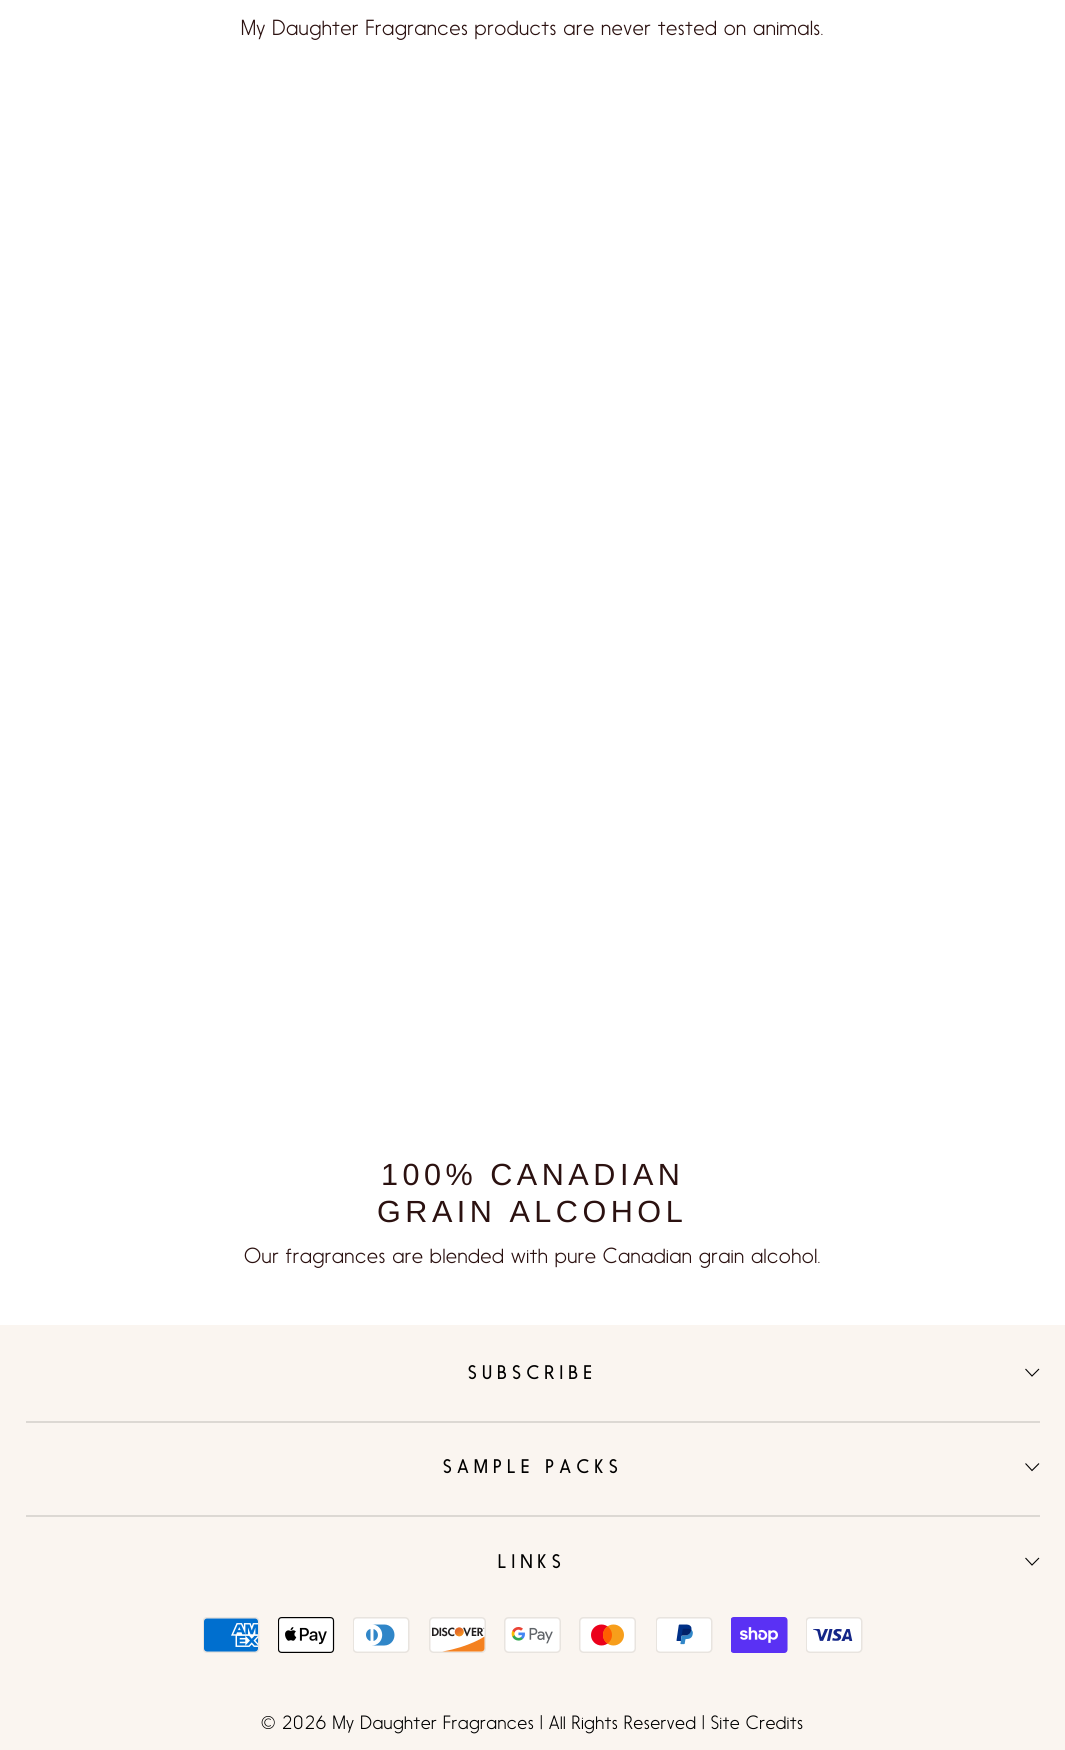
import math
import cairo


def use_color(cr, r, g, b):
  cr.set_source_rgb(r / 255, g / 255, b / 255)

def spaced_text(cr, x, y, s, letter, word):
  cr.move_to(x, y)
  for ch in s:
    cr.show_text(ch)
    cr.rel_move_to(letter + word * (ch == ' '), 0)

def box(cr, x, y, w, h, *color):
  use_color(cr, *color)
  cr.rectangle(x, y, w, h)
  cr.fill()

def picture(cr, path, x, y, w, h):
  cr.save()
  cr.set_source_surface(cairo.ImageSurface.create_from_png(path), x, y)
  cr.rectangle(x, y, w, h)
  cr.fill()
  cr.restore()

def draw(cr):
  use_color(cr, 255, 255, 255)
  cr.paint()
  box(cr, 0, 1325, 1065, 425, 250, 245, 240)
  cr.new_path()
  cr.move_to(1025.5, 1369)
  cr.line_to(1032, 1376)
  cr.line_to(1039, 1369)
  use_color(cr, 0, 0, 0)
  cr.set_line_width(1.1)
  cr.stroke()
  box(cr, 26, 1421, 1014, 2, 220, 216, 211)
  cr.new_path()
  cr.move_to(1025.5, 1463.5)
  cr.line_to(1032, 1470.5)
  cr.line_to(1039, 1463.5)
  use_color(cr, 0, 0, 0)
  cr.stroke()
  box(cr, 26, 1515, 1014, 2, 220, 216, 211)
  cr.new_path()
  cr.move_to(1025.5, 1558)
  cr.line_to(1032, 1565)
  cr.line_to(1039, 1558)
  use_color(cr, 0, 0, 0)
  cr.stroke()
  picture(cr, "img_01.png", 203, 1617, 57, 36)
  picture(cr, "img_02.png", 278, 1617, 57, 36)
  picture(cr, "img_03.png", 353, 1617, 57, 36)
  picture(cr, "img_04.png", 429, 1617, 57, 36)
  picture(cr, "img_05.png", 504, 1617, 57, 36)
  picture(cr, "img_06.png", 579, 1617, 57, 36)
  picture(cr, "img_07.png", 656, 1617, 57, 36)
  picture(cr, "img_08.png", 731, 1617, 57, 36)
  picture(cr, "img_09.png", 806, 1617, 57, 36)
  cr.select_font_face("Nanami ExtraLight")
  cr.set_font_size(20.4)
  use_color(cr, 43, 17, 16)
  spaced_text(cr, 241, 35, "My Daughter Fragrances products are never tested on animals.", 0.5, 0)
  cr.select_font_face("Liberation Sans")
  cr.set_font_size(30.6)
  spaced_text(cr, 381, 1185, "100% CANADIAN", 4.5, 0)
  spaced_text(cr, 377, 1222, "GRAIN ALCOHOL", 4.5, 0)
  cr.select_font_face("Nanami ExtraLight")
  cr.set_font_size(20.4)
  spaced_text(cr, 244, 1263, "Our fragrances are blended with pure Canadian grain alcohol.", 0.5, 0)
  cr.select_font_face("Nanami Light")
  cr.set_font_size(18.4)
  use_color(cr, 0, 0, 0)
  spaced_text(cr, 468, 1379, "SUBSCRIBE", 5.5, 0)
  spaced_text(cr, 443, 1473, "SAMPLE PACKS", 5.5, 0)
  spaced_text(cr, 498, 1568, "LINKS", 5.5, 0)
  cr.select_font_face("Nanami ExtraLight")
  cr.set_font_size(18)
  spaced_text(cr, 261, 1729, "© 2026 My Daughter Fragrances | All Rights Reserved | Site Credits", 0.5, 0)


surface = cairo.ImageSurface(cairo.FORMAT_RGB24, 1065, 1750)
cr = cairo.Context(surface)
options = cairo.FontOptions()
options.set_hint_metrics(cairo.HINT_METRICS_OFF)
options.set_hint_style(cairo.HINT_STYLE_NONE)
cr.set_font_options(options)
cr.set_miter_limit(4)
draw(cr)
surface.write_to_png("out.png")
